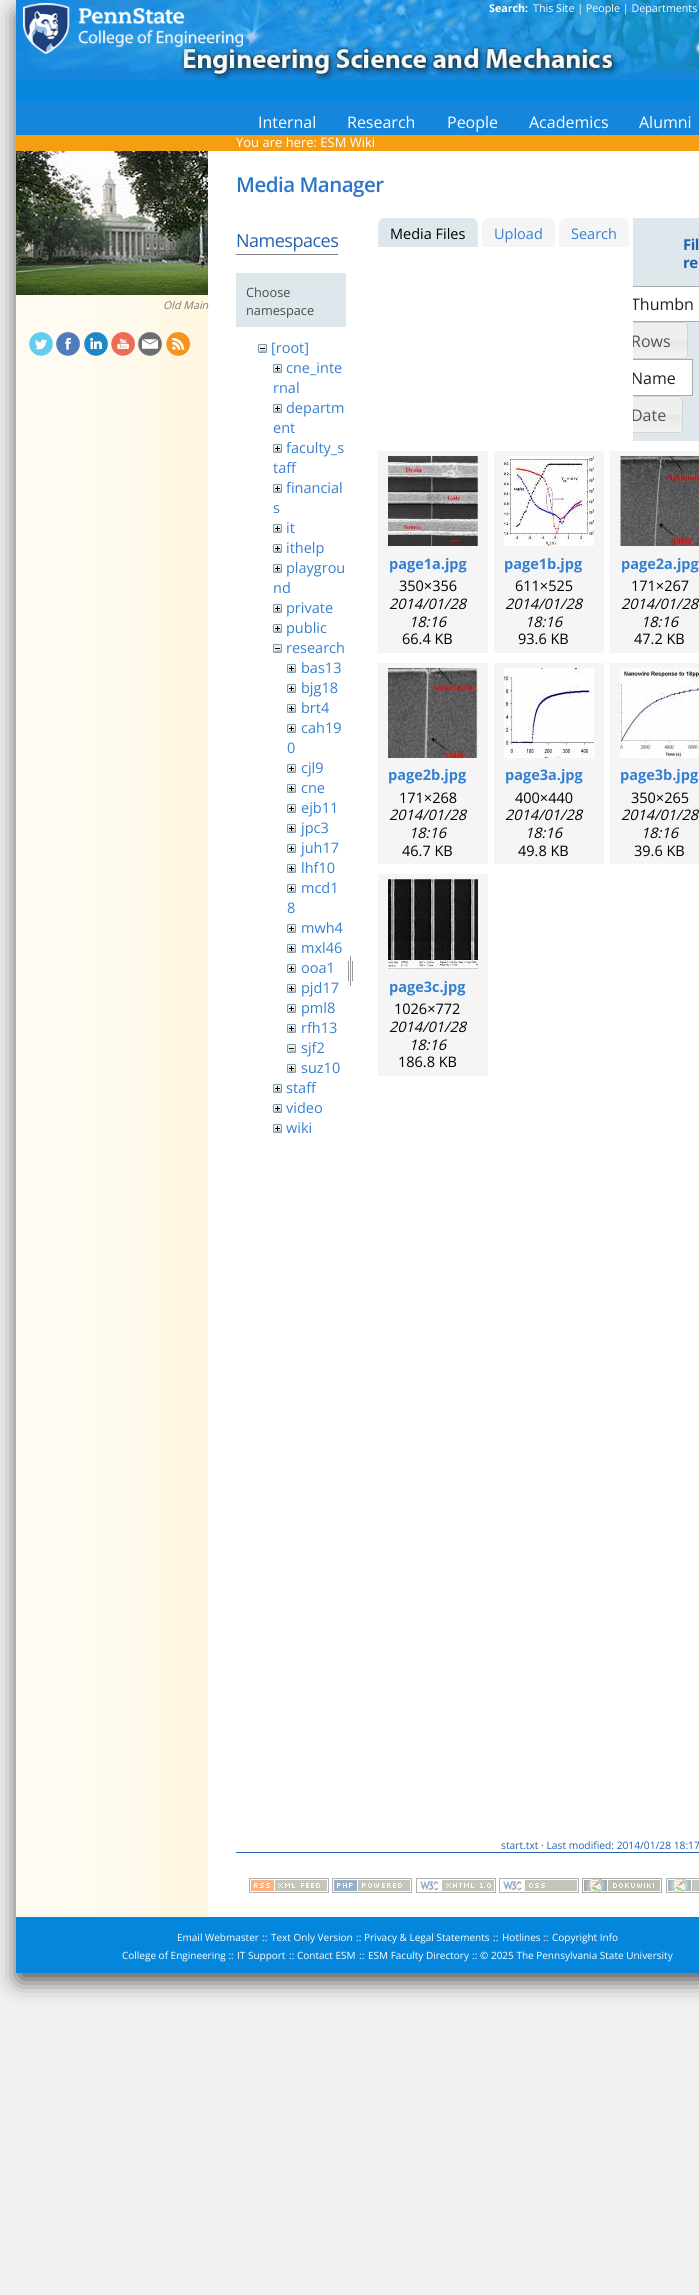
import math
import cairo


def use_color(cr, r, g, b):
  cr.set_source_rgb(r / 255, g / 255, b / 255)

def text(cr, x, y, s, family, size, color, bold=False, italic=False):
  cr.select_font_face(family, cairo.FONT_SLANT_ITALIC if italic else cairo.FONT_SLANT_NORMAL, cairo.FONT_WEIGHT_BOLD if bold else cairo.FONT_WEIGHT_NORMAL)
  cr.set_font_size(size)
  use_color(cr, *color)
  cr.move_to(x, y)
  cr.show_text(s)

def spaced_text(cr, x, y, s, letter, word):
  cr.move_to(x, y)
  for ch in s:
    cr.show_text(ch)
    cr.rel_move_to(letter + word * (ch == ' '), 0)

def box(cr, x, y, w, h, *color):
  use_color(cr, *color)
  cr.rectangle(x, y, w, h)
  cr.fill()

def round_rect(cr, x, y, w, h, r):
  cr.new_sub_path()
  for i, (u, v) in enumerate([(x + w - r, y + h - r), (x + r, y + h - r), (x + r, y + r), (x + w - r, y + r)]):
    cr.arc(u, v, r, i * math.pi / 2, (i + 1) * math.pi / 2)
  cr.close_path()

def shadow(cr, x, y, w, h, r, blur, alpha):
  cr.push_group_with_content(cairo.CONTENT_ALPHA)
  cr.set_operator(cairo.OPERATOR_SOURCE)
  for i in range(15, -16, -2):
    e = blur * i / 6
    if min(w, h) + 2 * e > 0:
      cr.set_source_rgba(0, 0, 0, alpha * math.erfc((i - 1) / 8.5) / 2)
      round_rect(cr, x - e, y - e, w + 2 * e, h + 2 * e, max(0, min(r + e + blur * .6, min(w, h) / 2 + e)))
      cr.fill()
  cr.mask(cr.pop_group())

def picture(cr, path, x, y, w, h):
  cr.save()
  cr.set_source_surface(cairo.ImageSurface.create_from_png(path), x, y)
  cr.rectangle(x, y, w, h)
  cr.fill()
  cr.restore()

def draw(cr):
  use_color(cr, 241, 241, 241)
  cr.paint()
  use_color(cr, 0, 0, 0)
  shadow(cr, 19, 14, 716, 1965, 0, 12, 0.75)
  box(cr, 208, 151, 491, 1766, 255, 255, 255)
  box(cr, 16, 80, 683, 21, 4, 134, 221)
  picture(cr, "img_01.png", 16, 0, 683, 80)
  picture(cr, "img_02.png", 23, 3, 220, 51)
  picture(cr, "img_03.png", 694, 41, 5, 14)
  box(cr, 16, 101, 683, 34, 22, 134, 220)
  box(cr, 16, 135, 683, 16, 246, 158, 18)
  picture(cr, "img_04.png", 16, 295, 192, 1622)
  picture(cr, "img_05.png", 16, 151, 192, 144)
  picture(cr, "img_06.png", 29, 332, 24, 24)
  picture(cr, "img_07.png", 56, 332, 24, 24)
  picture(cr, "img_08.png", 84, 332, 24, 24)
  picture(cr, "img_09.png", 111, 332, 24, 24)
  picture(cr, "img_10.png", 138, 332, 24, 24)
  picture(cr, "img_11.png", 166, 332, 24, 24)
  box(cr, 236, 254, 102, 1, 128, 128, 128)
  box(cr, 236, 273, 110, 54, 222, 231, 236)
  picture(cr, "img_12.png", 258, 344, 9, 9)
  picture(cr, "img_13.png", 273, 364, 9, 9)
  picture(cr, "img_13.png", 273, 404, 9, 9)
  picture(cr, "img_13.png", 273, 444, 9, 9)
  picture(cr, "img_13.png", 273, 484, 9, 9)
  picture(cr, "img_13.png", 273, 524, 9, 9)
  picture(cr, "img_13.png", 273, 544, 9, 9)
  picture(cr, "img_13.png", 273, 564, 9, 9)
  picture(cr, "img_13.png", 273, 604, 9, 9)
  picture(cr, "img_13.png", 273, 624, 9, 9)
  picture(cr, "img_12.png", 273, 644, 9, 9)
  picture(cr, "img_13.png", 287, 664, 9, 9)
  picture(cr, "img_13.png", 287, 684, 9, 9)
  picture(cr, "img_13.png", 287, 704, 9, 9)
  picture(cr, "img_13.png", 287, 724, 9, 9)
  picture(cr, "img_13.png", 287, 764, 9, 9)
  picture(cr, "img_13.png", 287, 784, 9, 9)
  picture(cr, "img_13.png", 287, 804, 9, 9)
  picture(cr, "img_13.png", 287, 824, 9, 9)
  picture(cr, "img_13.png", 287, 844, 9, 9)
  picture(cr, "img_13.png", 287, 864, 9, 9)
  picture(cr, "img_13.png", 287, 884, 9, 9)
  picture(cr, "img_13.png", 287, 924, 9, 9)
  picture(cr, "img_13.png", 287, 944, 9, 9)
  picture(cr, "img_13.png", 287, 964, 9, 9)
  picture(cr, "img_13.png", 287, 984, 9, 9)
  picture(cr, "img_13.png", 287, 1004, 9, 9)
  picture(cr, "img_13.png", 287, 1024, 9, 9)
  picture(cr, "img_12.png", 287, 1044, 9, 9)
  picture(cr, "img_13.png", 287, 1064, 9, 9)
  picture(cr, "img_13.png", 273, 1084, 9, 9)
  picture(cr, "img_13.png", 273, 1104, 9, 9)
  picture(cr, "img_13.png", 273, 1124, 9, 9)
  picture(cr, "img_14.png", 348, 955, 5, 31)
  cr.new_path()
  cr.move_to(385, 218)
  cr.line_to(471, 218)
  cr.curve_to(475, 218, 478, 221, 478, 225)
  cr.line_to(478, 247)
  cr.line_to(378, 247)
  cr.line_to(378, 225)
  cr.curve_to(378, 221, 381, 218, 385, 218)
  cr.close_path()
  cr.fill()
  use_color(cr, 245, 245, 245)
  cr.new_path()
  cr.move_to(489, 218)
  cr.line_to(548, 218)
  cr.curve_to(552, 218, 555, 221, 555, 225)
  cr.line_to(555, 247)
  cr.line_to(482, 247)
  cr.line_to(482, 225)
  cr.curve_to(482, 221, 485, 218, 489, 218)
  cr.close_path()
  cr.fill()
  cr.new_path()
  cr.move_to(566, 218)
  cr.line_to(622, 218)
  cr.curve_to(626, 218, 629, 221, 629, 225)
  cr.line_to(629, 247)
  cr.line_to(559, 247)
  cr.line_to(559, 225)
  cr.curve_to(559, 221, 562, 218, 566, 218)
  cr.close_path()
  cr.fill()
  box(cr, 633, 218, 66, 223, 222, 231, 236)
  box(cr, 633, 287, 66, 34, 255, 255, 255)
  cr.save()
  cr.rectangle(633, 218, 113, 223)
  cr.clip()
  cr.new_path()
  cr.move_to(618, 286.5)
  cr.line_to(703.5, 286.5)
  cr.line_to(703.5, 321.5)
  cr.line_to(618, 321.5)
  cr.curve_to(616, 321.5, 614.5, 320, 614.5, 318)
  cr.line_to(614.5, 290)
  cr.curve_to(614.5, 288, 616, 286.5, 618, 286.5)
  cr.close_path()
  use_color(cr, 170, 170, 170)
  cr.set_line_width(1)
  cr.stroke()
  cr.restore()
  picture(cr, "img_15.png", 633, 322, 55, 37)
  cr.save()
  cr.rectangle(633, 218, 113, 223)
  cr.clip()
  cr.new_path()
  cr.move_to(614.5, 322.5)
  cr.line_to(684, 322.5)
  cr.curve_to(686, 322.5, 687.5, 324, 687.5, 326)
  cr.line_to(687.5, 355)
  cr.curve_to(687.5, 357, 686, 358.5, 684, 358.5)
  cr.line_to(614.5, 358.5)
  cr.close_path()
  use_color(cr, 211, 211, 211)
  cr.set_line_width(1)
  cr.stroke()
  cr.restore()
  box(cr, 633, 360, 59, 35, 255, 255, 255)
  cr.save()
  cr.rectangle(633, 218, 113, 223)
  cr.clip()
  cr.new_path()
  cr.move_to(618, 359.5)
  cr.line_to(692.5, 359.5)
  cr.line_to(692.5, 395.5)
  cr.line_to(618, 395.5)
  cr.curve_to(616, 395.5, 614.5, 394, 614.5, 392)
  cr.line_to(614.5, 363)
  cr.curve_to(614.5, 361, 616, 359.5, 618, 359.5)
  cr.close_path()
  use_color(cr, 170, 170, 170)
  cr.set_line_width(1)
  cr.stroke()
  cr.restore()
  picture(cr, "img_16.png", 633, 396, 50, 37)
  cr.save()
  cr.rectangle(633, 218, 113, 223)
  cr.clip()
  cr.new_path()
  cr.move_to(614.5, 396.5)
  cr.line_to(679, 396.5)
  cr.curve_to(681, 396.5, 682.5, 398, 682.5, 400)
  cr.line_to(682.5, 429)
  cr.curve_to(682.5, 431, 681, 432.5, 679, 432.5)
  cr.line_to(614.5, 432.5)
  cr.close_path()
  use_color(cr, 211, 211, 211)
  cr.set_line_width(1)
  cr.stroke()
  cr.restore()
  box(cr, 378, 451, 110, 202, 245, 245, 245)
  picture(cr, "img_17.png", 388, 456, 90, 90)
  box(cr, 494, 451, 110, 202, 245, 245, 245)
  picture(cr, "img_18.png", 504, 456, 90, 90)
  box(cr, 610, 451, 89, 202, 245, 245, 245)
  picture(cr, "img_19.png", 620, 456, 79, 90)
  box(cr, 378, 663, 110, 201, 245, 245, 245)
  picture(cr, "img_20.png", 388, 668, 90, 90)
  box(cr, 494, 663, 110, 201, 245, 245, 245)
  picture(cr, "img_21.png", 504, 668, 90, 90)
  box(cr, 610, 663, 89, 201, 245, 245, 245)
  picture(cr, "img_22.png", 620, 668, 79, 90)
  box(cr, 378, 874, 110, 202, 245, 245, 245)
  picture(cr, "img_23.png", 388, 879, 90, 90)
  box(cr, 236, 1852, 463, 1, 36, 97, 170)
  picture(cr, "img_24.png", 249, 1878, 80, 15)
  picture(cr, "img_25.png", 332, 1878, 80, 15)
  picture(cr, "img_26.png", 416, 1878, 80, 15)
  picture(cr, "img_27.png", 499, 1878, 80, 15)
  picture(cr, "img_28.png", 582, 1878, 80, 15)
  picture(cr, "img_29.png", 666, 1878, 33, 15)
  box(cr, 16, 1917, 683, 56, 4, 134, 221)
  text(cr, 489, 12, "Search:", "Open Sans", 10.7, (255, 255, 255), bold=True)
  text(cr, 533, 12, "This Site | People | Departments", "Open Sans", 10.7, (255, 255, 255))
  text(cr, 258, 128, "Internal", "Open Sans", 16, (255, 255, 255))
  text(cr, 347, 128, "Research", "Open Sans", 16, (255, 255, 255))
  text(cr, 447, 128, "People", "Open Sans", 16, (255, 255, 255))
  text(cr, 529, 128, "Academics", "Open Sans", 16, (255, 255, 255))
  text(cr, 639, 128, "Alumni", "Open Sans", 16, (255, 255, 255))
  text(cr, 236, 147, "You are here: ESM Wiki", "Open Sans", 13, (255, 255, 255))
  text(cr, 163, 309, "Old Main", "Open Sans", 10.7, (119, 119, 119), italic=True)
  cr.select_font_face("Open Sans SemiBold")
  cr.set_font_size(20.5)
  use_color(cr, 44, 118, 199)
  spaced_text(cr, 236, 192, "Media Manager", -0.5, 0)
  cr.select_font_face("Open Sans")
  cr.set_font_size(18)
  use_color(cr, 36, 97, 170)
  spaced_text(cr, 236, 247, "Namespaces", -0.5, 0)
  text(cr, 246, 297, "Choose", "Open Sans", 12.75, (76, 76, 76))
  text(cr, 246, 315, "namespace", "Open Sans", 12.75, (76, 76, 76))
  text(cr, 271, 353, "[root]", "Open Sans", 14.5, (53, 128, 209))
  text(cr, 286, 373, "cne_inte", "Open Sans", 14.5, (53, 128, 209))
  text(cr, 273, 393, "rnal", "Open Sans", 14.5, (53, 128, 209))
  text(cr, 286, 413, "departm", "Open Sans", 14.5, (53, 128, 209))
  text(cr, 273, 433, "ent", "Open Sans", 14.5, (53, 128, 209))
  text(cr, 286, 453, "faculty_s", "Open Sans", 14.5, (53, 128, 209))
  text(cr, 273, 473, "taff", "Open Sans", 14.5, (53, 128, 209))
  text(cr, 286, 493, "financial", "Open Sans", 14.5, (53, 128, 209))
  text(cr, 273, 513, "s", "Open Sans", 14.5, (53, 128, 209))
  text(cr, 286, 533, "it", "Open Sans", 14.5, (53, 128, 209))
  text(cr, 286, 553, "ithelp", "Open Sans", 14.5, (53, 128, 209))
  text(cr, 286, 573, "playgrou", "Open Sans", 14.5, (53, 128, 209))
  text(cr, 273, 593, "nd", "Open Sans", 14.5, (53, 128, 209))
  text(cr, 286, 613, "private", "Open Sans", 14.5, (53, 128, 209))
  text(cr, 286, 633, "public", "Open Sans", 14.5, (53, 128, 209))
  text(cr, 286, 653, "research", "Open Sans", 14.5, (53, 128, 209))
  text(cr, 301, 673, "bas13", "Open Sans", 14.5, (53, 128, 209))
  text(cr, 301, 693, "bjg18", "Open Sans", 14.5, (53, 128, 209))
  text(cr, 301, 713, "brt4", "Open Sans", 14.5, (53, 128, 209))
  text(cr, 301, 733, "cah19", "Open Sans", 14.5, (53, 128, 209))
  text(cr, 287, 753, "0", "Open Sans", 14.5, (53, 128, 209))
  text(cr, 301, 773, "cjl9", "Open Sans", 14.5, (53, 128, 209))
  text(cr, 301, 793, "cne", "Open Sans", 14.5, (53, 128, 209))
  text(cr, 301, 813, "ejb11", "Open Sans", 14.5, (53, 128, 209))
  text(cr, 301, 833, "jpc3", "Open Sans", 14.5, (53, 128, 209))
  text(cr, 301, 853, "juh17", "Open Sans", 14.5, (53, 128, 209))
  text(cr, 301, 873, "lhf10", "Open Sans", 14.5, (53, 128, 209))
  text(cr, 301, 893, "mcd1", "Open Sans", 14.5, (53, 128, 209))
  text(cr, 287, 913, "8", "Open Sans", 14.5, (53, 128, 209))
  text(cr, 301, 933, "mwh4", "Open Sans", 14.5, (53, 128, 209))
  text(cr, 301, 953, "mxl46", "Open Sans", 14.5, (53, 128, 209))
  text(cr, 301, 973, "ooa1", "Open Sans", 14.5, (53, 128, 209))
  text(cr, 301, 993, "pjd17", "Open Sans", 14.5, (53, 128, 209))
  text(cr, 301, 1013, "pml8", "Open Sans", 14.5, (53, 128, 209))
  text(cr, 301, 1033, "rfh13", "Open Sans", 14.5, (53, 128, 209))
  text(cr, 301, 1053, "sjf2", "Open Sans", 14.5, (53, 128, 209))
  text(cr, 301, 1073, "suz10", "Open Sans", 14.5, (53, 128, 209))
  text(cr, 286, 1093, "staff", "Open Sans", 14.5, (53, 128, 209))
  text(cr, 286, 1113, "video", "Open Sans", 14.5, (53, 128, 209))
  text(cr, 286, 1133, "wiki", "Open Sans", 14.5, (53, 128, 209))
  text(cr, 390, 239, "Media Files", "Open Sans", 14.5, (0, 0, 0))
  text(cr, 494, 239, "Upload", "Open Sans", 14.5, (53, 128, 209))
  text(cr, 571, 239, "Search", "Open Sans", 14.5, (53, 128, 209))
  cr.select_font_face("Open Sans", cairo.FONT_SLANT_NORMAL, cairo.FONT_WEIGHT_BOLD)
  cr.set_font_size(15)
  use_color(cr, 36, 97, 170)
  spaced_text(cr, 683, 250, "Fil", -0.5, 0)
  spaced_text(cr, 683, 268, "re", -0.5, 0)
  cr.save()
  cr.rectangle(633, 218, 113, 223)
  cr.clip()
  text(cr, 631, 310, "Thumbn", "Open Sans", 16, (33, 33, 33))
  text(cr, 631, 347, "Rows", "Open Sans", 16, (85, 85, 85))
  text(cr, 631, 384, "Name", "Open Sans", 16, (33, 33, 33))
  text(cr, 631, 421, "Date", "Open Sans", 16, (85, 85, 85))
  cr.restore()
  text(cr, 389, 569, "page1a.jpg", "Open Sans", 14.5, (53, 128, 209), bold=True)
  text(cr, 399, 591, "350×356", "Open Sans", 14.5, (0, 0, 0))
  text(cr, 389, 609, "2014/01/28", "Open Sans", 14.5, (0, 0, 0), italic=True)
  text(cr, 409, 627, "18:16", "Open Sans", 14.5, (0, 0, 0), italic=True)
  text(cr, 402, 644, "66.4 KB", "Open Sans", 14.5, (0, 0, 0))
  text(cr, 504, 569, "page1b.jpg", "Open Sans", 14.5, (53, 128, 209), bold=True)
  text(cr, 515, 591, "611×525", "Open Sans", 14.5, (0, 0, 0))
  text(cr, 505, 609, "2014/01/28", "Open Sans", 14.5, (0, 0, 0), italic=True)
  text(cr, 525, 627, "18:16", "Open Sans", 14.5, (0, 0, 0), italic=True)
  text(cr, 518, 644, "93.6 KB", "Open Sans", 14.5, (0, 0, 0))
  text(cr, 621, 569, "page2a.jpg", "Open Sans", 14.5, (53, 128, 209), bold=True)
  text(cr, 631, 591, "171×267", "Open Sans", 14.5, (0, 0, 0))
  text(cr, 621, 609, "2014/01/28", "Open Sans", 14.5, (0, 0, 0), italic=True)
  text(cr, 641, 627, "18:16", "Open Sans", 14.5, (0, 0, 0), italic=True)
  text(cr, 634, 644, "47.2 KB", "Open Sans", 14.5, (0, 0, 0))
  text(cr, 388, 780, "page2b.jpg", "Open Sans", 14.5, (53, 128, 209), bold=True)
  text(cr, 399, 803, "171×268", "Open Sans", 14.5, (0, 0, 0))
  text(cr, 389, 820, "2014/01/28", "Open Sans", 14.5, (0, 0, 0), italic=True)
  text(cr, 409, 838, "18:16", "Open Sans", 14.5, (0, 0, 0), italic=True)
  text(cr, 402, 856, "46.7 KB", "Open Sans", 14.5, (0, 0, 0))
  text(cr, 505, 780, "page3a.jpg", "Open Sans", 14.5, (53, 128, 209), bold=True)
  text(cr, 515, 803, "400×440", "Open Sans", 14.5, (0, 0, 0))
  text(cr, 505, 820, "2014/01/28", "Open Sans", 14.5, (0, 0, 0), italic=True)
  text(cr, 525, 838, "18:16", "Open Sans", 14.5, (0, 0, 0), italic=True)
  text(cr, 518, 856, "49.8 KB", "Open Sans", 14.5, (0, 0, 0))
  text(cr, 620, 780, "page3b.jpg", "Open Sans", 14.5, (53, 128, 209), bold=True)
  text(cr, 631, 803, "350×265", "Open Sans", 14.5, (0, 0, 0))
  text(cr, 621, 820, "2014/01/28", "Open Sans", 14.5, (0, 0, 0), italic=True)
  text(cr, 641, 838, "18:16", "Open Sans", 14.5, (0, 0, 0), italic=True)
  text(cr, 634, 856, "39.6 KB", "Open Sans", 14.5, (0, 0, 0))
  text(cr, 389, 992, "page3c.jpg", "Open Sans", 14.5, (53, 128, 209), bold=True)
  text(cr, 394, 1014, "1026×772", "Open Sans", 14.5, (0, 0, 0))
  text(cr, 389, 1032, "2014/01/28", "Open Sans", 14.5, (0, 0, 0), italic=True)
  text(cr, 409, 1050, "18:16", "Open Sans", 14.5, (0, 0, 0), italic=True)
  text(cr, 398, 1067, "186.8 KB", "Open Sans", 14.5, (0, 0, 0))
  text(cr, 501, 1849, "start.txt · Last modified: 2014/01/28 18:17", "Open Sans", 10.25, (36, 97, 170))
  text(cr, 177, 1941, "Email Webmaster", "Open Sans", 10, (255, 255, 255))
  text(cr, 262, 1941, "::", "Open Sans", 10, (255, 255, 255))
  text(cr, 271, 1941, "Text Only Version", "Open Sans", 10, (255, 255, 255))
  text(cr, 356, 1941, "::", "Open Sans", 10, (255, 255, 255))
  text(cr, 364, 1941, "Privacy & Legal Statements", "Open Sans", 10, (255, 255, 255))
  text(cr, 493, 1941, "::", "Open Sans", 10, (255, 255, 255))
  text(cr, 502, 1941, "Hotlines", "Open Sans", 10, (255, 255, 255))
  text(cr, 543, 1941, "::", "Open Sans", 10, (255, 255, 255))
  text(cr, 552, 1941, "Copyright Info", "Open Sans", 10, (255, 255, 255))
  text(cr, 122, 1959, "College of Engineering ::", "Open Sans", 10, (255, 255, 255))
  text(cr, 237, 1959, "IT Support", "Open Sans", 10, (255, 255, 255))
  text(cr, 289, 1959, "::", "Open Sans", 10, (255, 255, 255))
  text(cr, 297, 1959, "Contact ESM", "Open Sans", 10, (255, 255, 255))
  text(cr, 359, 1959, "::", "Open Sans", 10, (255, 255, 255))
  text(cr, 368, 1959, "ESM Faculty Directory", "Open Sans", 10, (255, 255, 255))
  text(cr, 472, 1959, "::", "Open Sans", 10, (255, 255, 255))
  text(cr, 480, 1959, "© 2025 The Pennsylvania State University", "Open Sans", 10, (255, 255, 255))


surface = cairo.ImageSurface(cairo.FORMAT_RGB24, 699, 2295)
cr = cairo.Context(surface)
options = cairo.FontOptions()
options.set_hint_metrics(cairo.HINT_METRICS_OFF)
options.set_hint_style(cairo.HINT_STYLE_NONE)
cr.set_font_options(options)
cr.set_miter_limit(4)
draw(cr)
surface.write_to_png("out.png")
